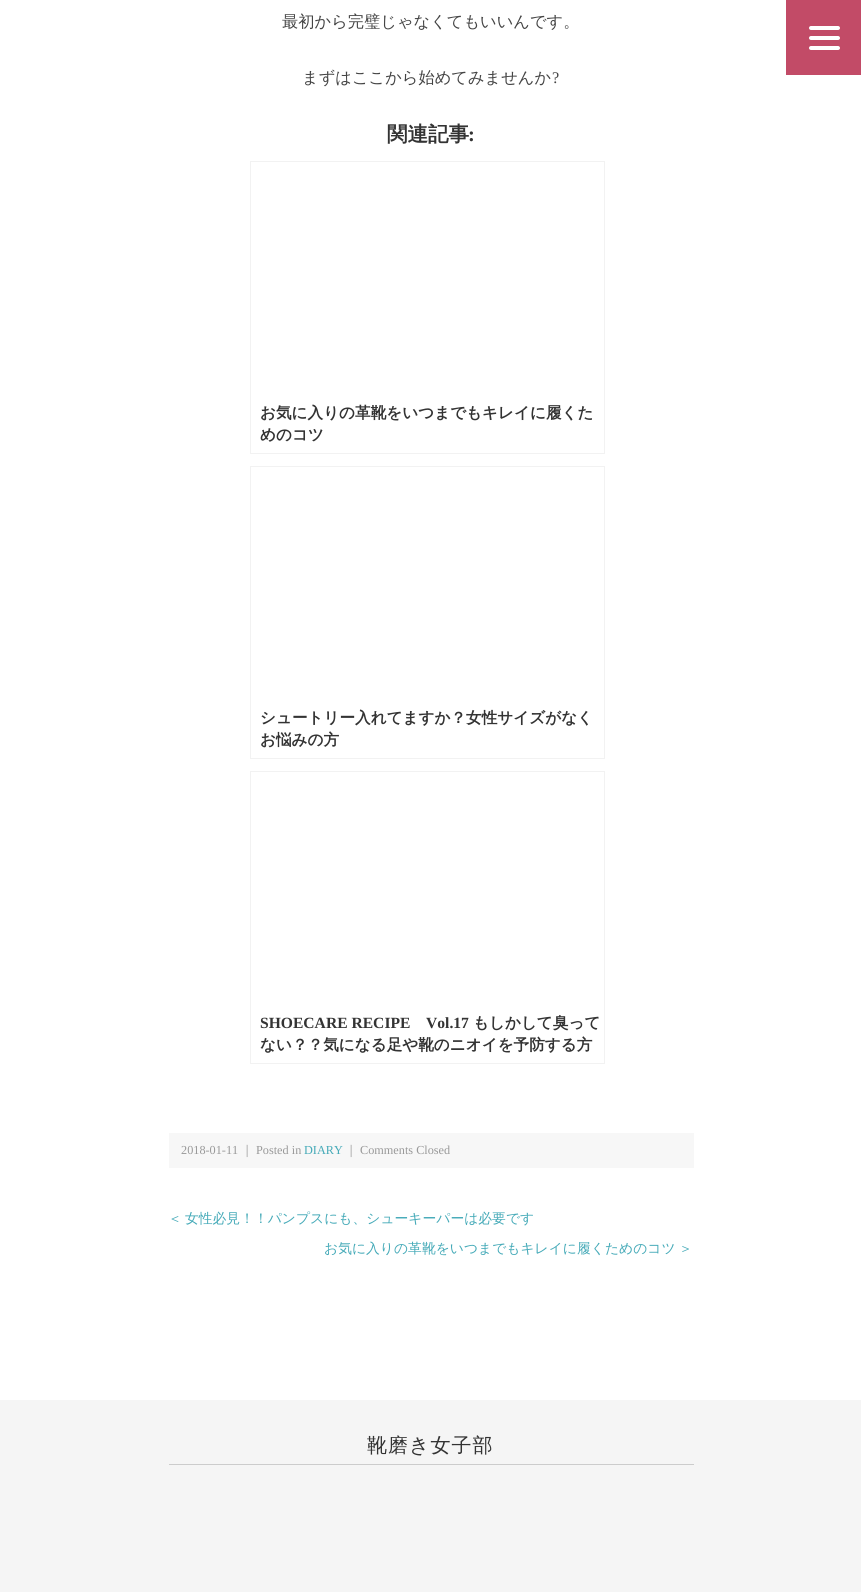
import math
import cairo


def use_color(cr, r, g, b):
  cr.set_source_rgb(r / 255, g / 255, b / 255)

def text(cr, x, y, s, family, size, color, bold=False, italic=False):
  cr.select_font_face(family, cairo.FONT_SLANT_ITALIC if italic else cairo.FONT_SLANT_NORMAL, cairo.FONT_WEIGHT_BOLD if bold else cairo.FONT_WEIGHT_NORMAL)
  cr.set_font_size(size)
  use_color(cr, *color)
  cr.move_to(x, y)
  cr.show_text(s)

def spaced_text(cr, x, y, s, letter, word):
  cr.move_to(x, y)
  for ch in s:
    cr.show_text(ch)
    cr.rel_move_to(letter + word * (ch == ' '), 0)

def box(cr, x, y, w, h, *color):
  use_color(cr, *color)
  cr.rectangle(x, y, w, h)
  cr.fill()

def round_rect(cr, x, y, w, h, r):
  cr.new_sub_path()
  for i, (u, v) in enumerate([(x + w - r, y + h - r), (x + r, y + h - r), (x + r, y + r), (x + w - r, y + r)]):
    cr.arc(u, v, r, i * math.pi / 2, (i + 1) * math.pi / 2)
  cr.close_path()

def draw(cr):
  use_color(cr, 255, 255, 255)
  cr.paint()
  cr.rectangle(250.5, 161.5, 354, 292)
  use_color(cr, 242, 242, 242)
  cr.set_line_width(1)
  cr.stroke()
  cr.rectangle(250.5, 466.5, 354, 292)
  cr.stroke()
  cr.rectangle(250.5, 771.5, 354, 292)
  cr.stroke()
  box(cr, 169, 1133, 525, 35, 247, 247, 247)
  box(cr, 786, 0, 75, 75, 194, 75, 103)
  use_color(cr, 255, 255, 255)
  round_rect(cr, 809, 36, 31, 4, 2)
  cr.fill()
  round_rect(cr, 809, 26, 31, 4, 2)
  cr.fill()
  round_rect(cr, 809, 46, 31, 4, 2)
  cr.fill()
  box(cr, 0, 1400, 861, 192, 245, 245, 245)
  box(cr, 169, 1464, 525, 1, 204, 204, 204)
  text(cr, 282, 27, "最初から完璧じゃなくてもいいんです。", "WenQuanYi Zen Hei Medium", 16.25, (68, 68, 68))
  text(cr, 302, 83, "まずはここから始めてみませんか", "WenQuanYi Zen Hei Medium", 16.25, (68, 68, 68))
  text(cr, 552, 83, "?", "Liberation Serif", 16.25, (68, 68, 68))
  text(cr, 387, 141, "関連記事", "WenQuanYi Zen Hei", 20.5, (51, 51, 51), bold=True)
  text(cr, 468, 141, ":", "Liberation Serif", 20.5, (51, 51, 51), bold=True)
  text(cr, 260, 418, "お気に入りの革靴をいつまでもキレイに履くた", "WenQuanYi Zen Hei", 15.6, (51, 51, 51), bold=True)
  text(cr, 260, 440, "めのコツ", "WenQuanYi Zen Hei", 15.6, (51, 51, 51), bold=True)
  text(cr, 260, 723, "シュートリー入れてますか？女性サイズがなく", "WenQuanYi Zen Hei", 15.6, (51, 51, 51), bold=True)
  text(cr, 260, 745, "お悩みの方", "WenQuanYi Zen Hei", 15.6, (51, 51, 51), bold=True)
  text(cr, 260, 1028, "SHOECARE RECIPE", "Liberation Serif", 15.6, (51, 51, 51), bold=True)
  text(cr, 426, 1028, "Vol.17", "Liberation Serif", 15.6, (51, 51, 51), bold=True)
  text(cr, 473, 1028, "もしかして臭って", "WenQuanYi Zen Hei", 15.6, (51, 51, 51), bold=True)
  text(cr, 260, 1050, "ない？？気になる足や靴のニオイを予防する方", "WenQuanYi Zen Hei", 15.6, (51, 51, 51), bold=True)
  text(cr, 181, 1154, "2018-01-11", "Liberation Serif", 12.25, (153, 153, 153))
  text(cr, 241, 1154, "｜", "WenQuanYi Zen Hei Medium", 12.25, (153, 153, 153))
  text(cr, 256, 1154, "Posted in", "Liberation Serif", 12.25, (153, 153, 153))
  text(cr, 304, 1154, "DIARY", "Liberation Serif", 12.25, (69, 170, 184))
  text(cr, 345, 1154, "｜", "WenQuanYi Zen Hei Medium", 12.25, (153, 153, 153))
  text(cr, 360, 1154, "Comments Closed", "Liberation Serif", 12.25, (153, 153, 153))
  cr.select_font_face("WenQuanYi Zen Hei Medium")
  cr.set_font_size(13.8)
  use_color(cr, 69, 170, 184)
  spaced_text(cr, 168, 1223, "＜ 女性必見！！パンプスにも、シューキーパーは必要です", 0, -1)
  spaced_text(cr, 324, 1253, "お気に入りの革靴をいつまでもキレイに履くためのコツ ＞", 0, -1)
  cr.set_font_size(20)
  use_color(cr, 51, 51, 51)
  spaced_text(cr, 367, 1452, "靴磨き女子部", 1, 0)


surface = cairo.ImageSurface(cairo.FORMAT_RGB24, 861, 1592)
cr = cairo.Context(surface)
options = cairo.FontOptions()
options.set_hint_metrics(cairo.HINT_METRICS_OFF)
options.set_hint_style(cairo.HINT_STYLE_NONE)
cr.set_font_options(options)
cr.set_miter_limit(4)
draw(cr)
surface.write_to_png("out.png")
